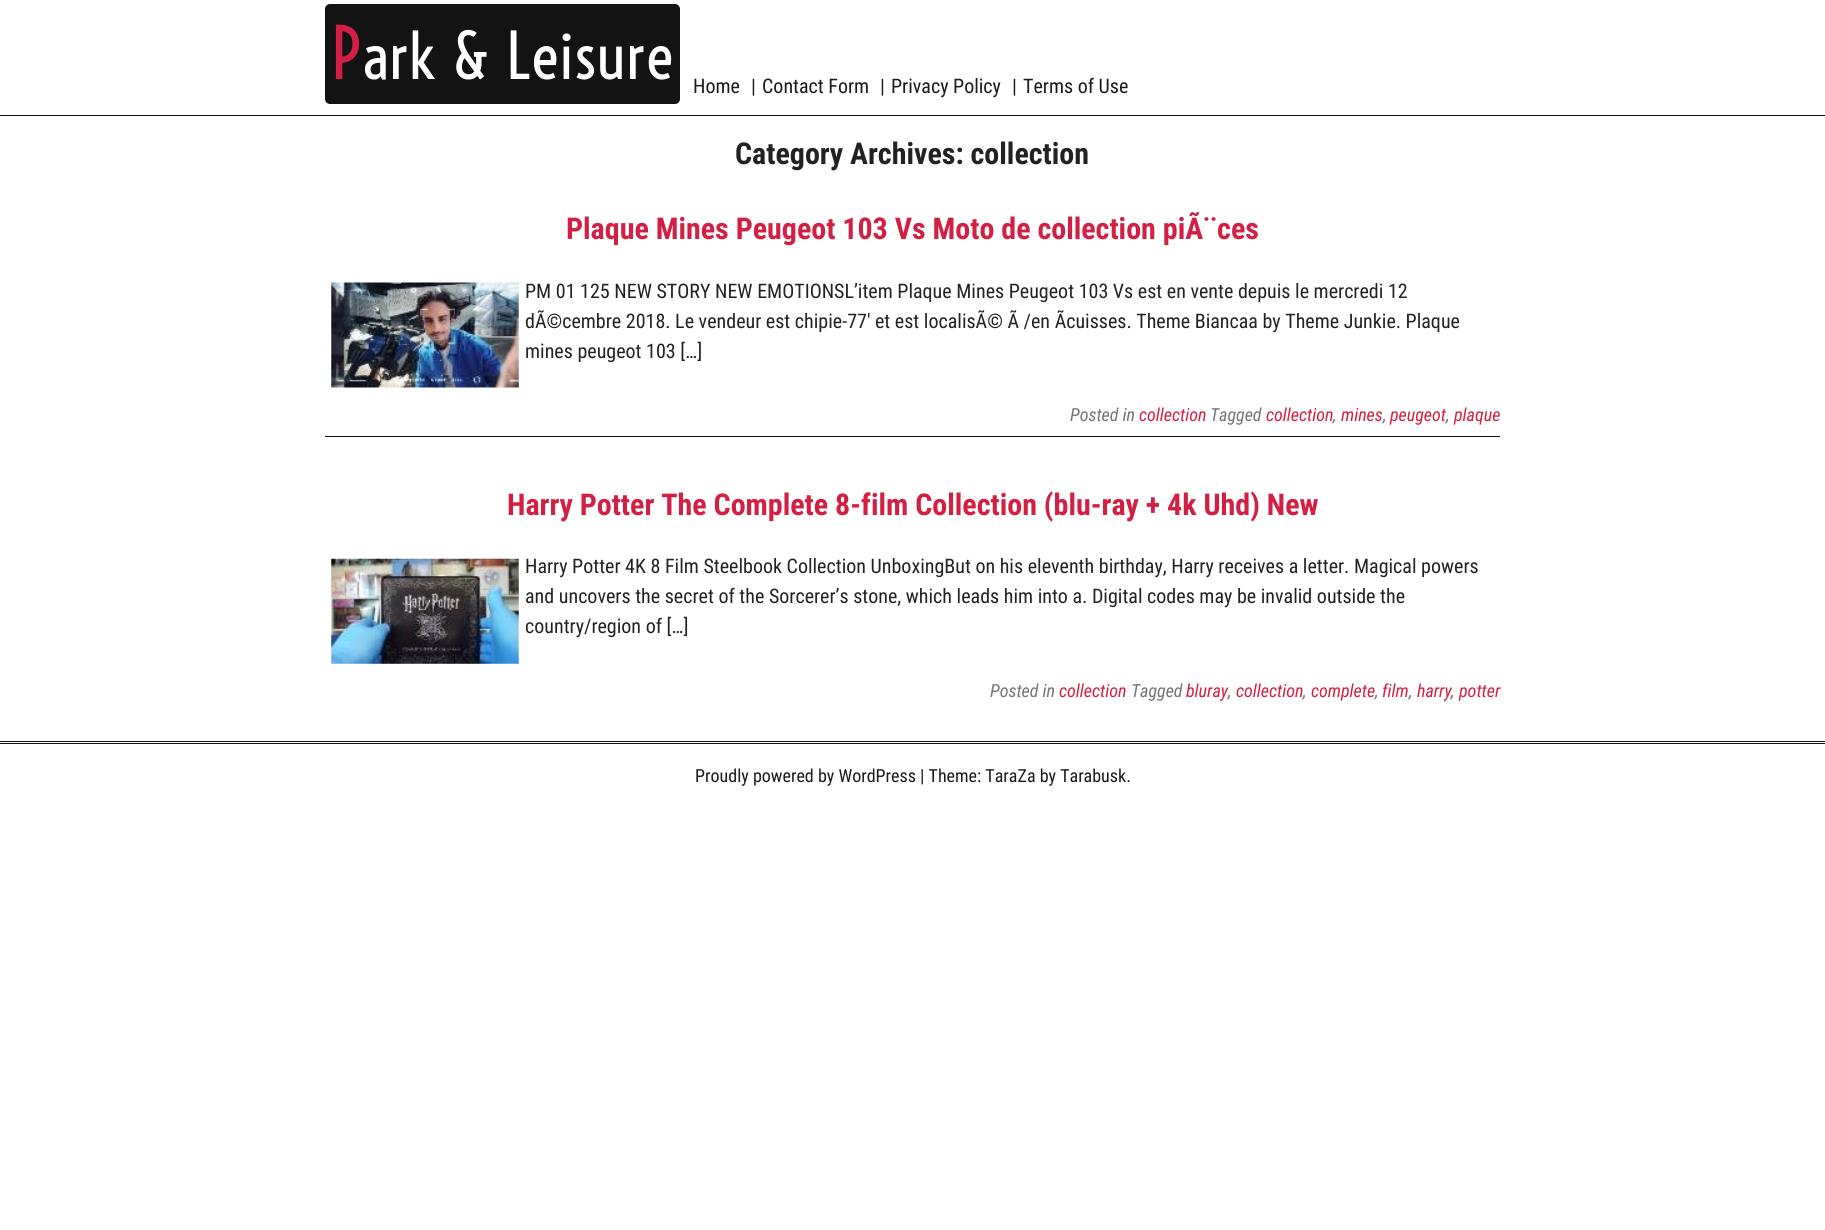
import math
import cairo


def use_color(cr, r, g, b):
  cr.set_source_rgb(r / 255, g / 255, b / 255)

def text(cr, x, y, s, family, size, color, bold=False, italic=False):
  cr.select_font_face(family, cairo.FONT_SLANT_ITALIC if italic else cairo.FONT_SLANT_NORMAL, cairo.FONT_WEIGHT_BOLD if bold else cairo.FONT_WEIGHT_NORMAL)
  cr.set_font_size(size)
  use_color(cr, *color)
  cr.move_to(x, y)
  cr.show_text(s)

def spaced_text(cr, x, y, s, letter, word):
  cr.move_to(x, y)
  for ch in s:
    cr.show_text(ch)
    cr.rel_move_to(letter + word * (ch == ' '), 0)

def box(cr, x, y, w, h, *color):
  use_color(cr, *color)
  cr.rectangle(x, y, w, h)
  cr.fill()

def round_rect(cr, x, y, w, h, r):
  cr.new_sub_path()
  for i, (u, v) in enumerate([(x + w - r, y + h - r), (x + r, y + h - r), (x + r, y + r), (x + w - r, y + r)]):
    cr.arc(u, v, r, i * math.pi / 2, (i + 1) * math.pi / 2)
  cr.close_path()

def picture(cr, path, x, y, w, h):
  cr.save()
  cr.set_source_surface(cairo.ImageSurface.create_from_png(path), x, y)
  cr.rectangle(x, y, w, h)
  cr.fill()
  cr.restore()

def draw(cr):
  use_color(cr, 255, 255, 255)
  cr.paint()
  box(cr, 0, 115, 1825, 1, 19, 19, 19)
  round_rect(cr, 325, 4, 355, 100, 5)
  cr.fill()
  box(cr, 325, 436, 1175, 1, 19, 19, 19)
  picture(cr, "img_01.png", 331, 282, 188, 106)
  picture(cr, "img_02.png", 331, 558, 188, 106)
  box(cr, 0, 741, 1825, 1, 19, 19, 19)
  box(cr, 0, 743, 1825, 1, 19, 19, 19)
  cr.select_font_face("Voltaire")
  cr.set_font_size(69)
  use_color(cr, 210, 31, 67)
  spaced_text(cr, 331, 79, "P", 1.25, 0)
  cr.set_font_size(62.5)
  use_color(cr, 255, 255, 255)
  spaced_text(cr, 364, 79, "ark & Leisure", 1.25, 0)
  text(cr, 693, 93, "Home", "Roboto Condensed", 20, (26, 26, 26))
  text(cr, 751, 93, "|", "Roboto Condensed", 20, (26, 26, 26))
  text(cr, 762, 93, "Contact Form", "Roboto Condensed", 20, (26, 26, 26))
  text(cr, 880, 93, "|", "Roboto Condensed", 20, (26, 26, 26))
  text(cr, 891, 93, "Privacy Policy", "Roboto Condensed", 20, (26, 26, 26))
  text(cr, 1012, 93, "|", "Roboto Condensed", 20, (26, 26, 26))
  text(cr, 1023, 93, "Terms of Use", "Roboto Condensed", 20, (26, 26, 26))
  text(cr, 735, 164, "Category Archives: collection", "Roboto Condensed", 30, (34, 34, 34), bold=True)
  text(cr, 566, 239, "Plaque Mines Peugeot 103 Vs Moto de collection piÃ¨ces", "Roboto Condensed", 30, (210, 31, 67), bold=True)
  text(cr, 525, 298, "PM 01 125 NEW STORY NEW EMOTIONSL’item Plaque Mines Peugeot 103 Vs est en vente depuis le mercredi 12", "Roboto Condensed", 20, (34, 34, 34))
  text(cr, 525, 328, "dÃ©cembre 2018. Le vendeur est chipie-77′ et est localisÃ© Ã /en Ãcuisses. Theme Biancaa by Theme Junkie. Plaque", "Roboto Condensed", 20, (34, 34, 34))
  text(cr, 525, 358, "mines peugeot 103 […]", "Roboto Condensed", 20, (34, 34, 34))
  text(cr, 1070, 421, "Posted in", "Roboto Condensed", 18, (117, 117, 117), italic=True)
  text(cr, 1139, 421, "collection", "Roboto Condensed", 18, (210, 31, 67), italic=True)
  text(cr, 1210, 421, "Tagged", "Roboto Condensed", 18, (117, 117, 117), italic=True)
  text(cr, 1266, 421, "collection", "Roboto Condensed", 18, (210, 31, 67), italic=True)
  text(cr, 1333, 421, ",", "Roboto Condensed", 18, (117, 117, 117), italic=True)
  text(cr, 1341, 421, "mines", "Roboto Condensed", 18, (210, 31, 67), italic=True)
  text(cr, 1383, 421, ",", "Roboto Condensed", 18, (117, 117, 117), italic=True)
  text(cr, 1390, 421, "peugeot", "Roboto Condensed", 18, (210, 31, 67), italic=True)
  text(cr, 1454, 421, "plaque", "Roboto Condensed", 18, (210, 31, 67), italic=True)
  text(cr, 1446, 421, ",", "Roboto Condensed", 18, (117, 117, 117), italic=True)
  text(cr, 507, 515, "Harry Potter The Complete 8-film Collection (blu-ray + 4k Uhd) New", "Roboto Condensed", 30, (210, 31, 67), bold=True)
  text(cr, 525, 573, "Harry Potter 4K 8 Film Steelbook Collection UnboxingBut on his eleventh birthday, Harry receives a letter. Magical powers", "Roboto Condensed", 20, (34, 34, 34))
  text(cr, 525, 603, "and uncovers the secret of the Sorcerer’s stone, which leads him into a. Digital codes may be invalid outside the", "Roboto Condensed", 20, (34, 34, 34))
  text(cr, 525, 633, "country/region of […]", "Roboto Condensed", 20, (34, 34, 34))
  text(cr, 990, 697, "Posted in", "Roboto Condensed", 18, (117, 117, 117), italic=True)
  text(cr, 1059, 697, "collection", "Roboto Condensed", 18, (210, 31, 67), italic=True)
  text(cr, 1131, 697, "Tagged", "Roboto Condensed", 18, (117, 117, 117), italic=True)
  text(cr, 1186, 697, "bluray", "Roboto Condensed", 18, (210, 31, 67), italic=True)
  text(cr, 1236, 697, "collection", "Roboto Condensed", 18, (210, 31, 67), italic=True)
  text(cr, 1311, 697, "complete", "Roboto Condensed", 18, (210, 31, 67), italic=True)
  text(cr, 1382, 697, "film", "Roboto Condensed", 18, (210, 31, 67), italic=True)
  text(cr, 1417, 697, "harry", "Roboto Condensed", 18, (210, 31, 67), italic=True)
  text(cr, 1459, 697, "potter", "Roboto Condensed", 18, (210, 31, 67), italic=True)
  text(cr, 1228, 697, ",", "Roboto Condensed", 18, (117, 117, 117), italic=True)
  text(cr, 1303, 697, ",", "Roboto Condensed", 18, (117, 117, 117), italic=True)
  text(cr, 1375, 697, ",", "Roboto Condensed", 18, (117, 117, 117), italic=True)
  text(cr, 1409, 697, ",", "Roboto Condensed", 18, (117, 117, 117), italic=True)
  text(cr, 1451, 697, ",", "Roboto Condensed", 18, (117, 117, 117), italic=True)
  text(cr, 695, 782, "Proudly powered by WordPress | Theme: TaraZa by Tarabusk.", "Roboto Condensed", 18, (26, 26, 26))


surface = cairo.ImageSurface(cairo.FORMAT_RGB24, 1825, 1230)
cr = cairo.Context(surface)
options = cairo.FontOptions()
options.set_hint_metrics(cairo.HINT_METRICS_OFF)
options.set_hint_style(cairo.HINT_STYLE_NONE)
cr.set_font_options(options)
cr.set_miter_limit(4)
draw(cr)
surface.write_to_png("out.png")
